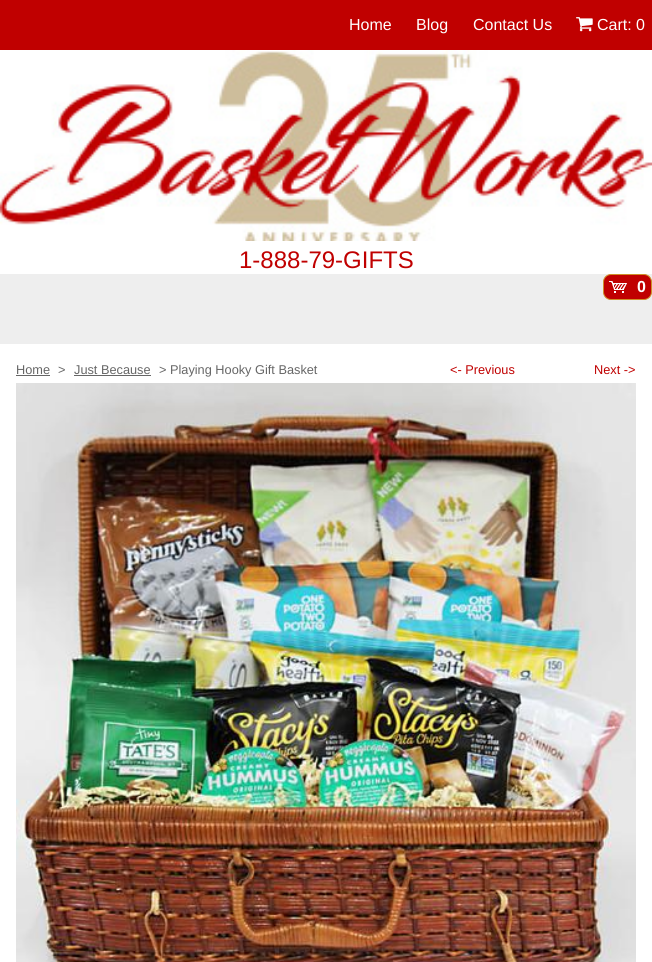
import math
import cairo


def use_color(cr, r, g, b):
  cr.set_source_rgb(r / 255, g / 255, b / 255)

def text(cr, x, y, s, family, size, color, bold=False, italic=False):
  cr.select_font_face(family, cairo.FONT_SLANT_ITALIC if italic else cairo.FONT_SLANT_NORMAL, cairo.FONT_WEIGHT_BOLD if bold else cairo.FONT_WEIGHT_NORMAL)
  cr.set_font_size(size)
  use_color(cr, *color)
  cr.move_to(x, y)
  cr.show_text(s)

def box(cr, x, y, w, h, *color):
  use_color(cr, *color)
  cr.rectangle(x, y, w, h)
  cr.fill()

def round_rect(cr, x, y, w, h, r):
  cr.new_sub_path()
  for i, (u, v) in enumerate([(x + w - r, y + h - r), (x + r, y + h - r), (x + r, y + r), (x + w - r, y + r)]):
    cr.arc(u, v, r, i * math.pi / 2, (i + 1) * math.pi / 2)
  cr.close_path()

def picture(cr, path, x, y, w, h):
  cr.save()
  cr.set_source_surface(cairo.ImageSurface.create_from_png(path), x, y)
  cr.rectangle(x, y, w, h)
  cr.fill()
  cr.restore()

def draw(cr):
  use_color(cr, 255, 255, 255)
  cr.paint()
  box(cr, 0, 0, 652, 50, 192, 0, 0)
  picture(cr, "img_01.png", 576, 17, 17, 15)
  picture(cr, "img_02.png", 0, 50, 652, 191)
  box(cr, 0, 274, 652, 70, 238, 238, 238)
  use_color(cr, 192, 0, 0)
  round_rect(cr, 603.5, 274.5, 48, 25, 7.5)
  cr.fill_preserve()
  use_color(cr, 206, 142, 40)
  cr.set_line_width(1)
  cr.stroke()
  picture(cr, "img_03.png", 609, 281, 18, 12)
  box(cr, 16, 375, 34, 1, 102, 102, 102)
  box(cr, 74, 375, 77, 1, 102, 102, 102)
  picture(cr, "img_04.png", 16, 383, 620, 579)
  text(cr, 349, 30, "Home", "Liberation Sans", 16, (255, 255, 255))
  text(cr, 416, 30, "Blog", "Liberation Sans", 16, (255, 255, 255))
  text(cr, 473, 30, "Contact Us", "Liberation Sans", 16, (255, 255, 255))
  text(cr, 597, 30, "Cart: 0", "Liberation Sans", 16, (255, 255, 255))
  text(cr, 239, 268, "1-888-79-GIFTS", "Liberation Sans", 24, (192, 0, 0))
  text(cr, 637, 292, "0", "Liberation Sans", 16, (255, 255, 255), bold=True)
  text(cr, 16, 374, "Home", "Liberation Sans", 12.75, (102, 102, 102))
  text(cr, 58, 374, ">", "Liberation Sans", 12.75, (102, 102, 102))
  text(cr, 74, 374, "Just Because", "Liberation Sans", 12.75, (102, 102, 102))
  text(cr, 159, 374, "> Playing Hooky Gift Basket", "Liberation Sans", 12.75, (102, 102, 102))
  text(cr, 450, 374, "<- Previous", "Liberation Sans", 12.75, (192, 0, 0))
  text(cr, 594, 374, "Next ->", "Liberation Sans", 12.75, (192, 0, 0))


surface = cairo.ImageSurface(cairo.FORMAT_RGB24, 652, 962)
cr = cairo.Context(surface)
options = cairo.FontOptions()
options.set_hint_metrics(cairo.HINT_METRICS_OFF)
options.set_hint_style(cairo.HINT_STYLE_NONE)
cr.set_font_options(options)
cr.set_miter_limit(4)
draw(cr)
surface.write_to_png("out.png")
